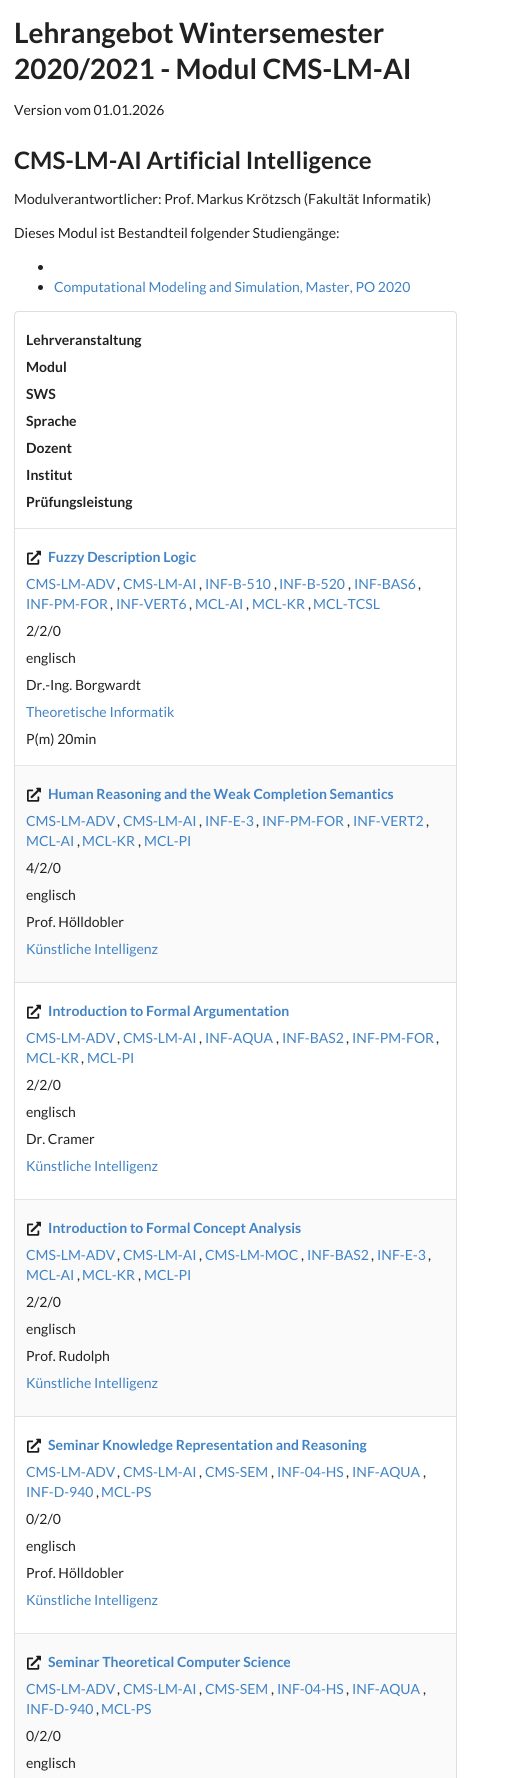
import math
import cairo


def use_color(cr, r, g, b):
  cr.set_source_rgb(r / 255, g / 255, b / 255)

def text(cr, x, y, s, family, size, color, bold=False, italic=False):
  cr.select_font_face(family, cairo.FONT_SLANT_ITALIC if italic else cairo.FONT_SLANT_NORMAL, cairo.FONT_WEIGHT_BOLD if bold else cairo.FONT_WEIGHT_NORMAL)
  cr.set_font_size(size)
  use_color(cr, *color)
  cr.move_to(x, y)
  cr.show_text(s)

def box(cr, x, y, w, h, *color):
  use_color(cr, *color)
  cr.rectangle(x, y, w, h)
  cr.fill()

def round_rect(cr, x, y, w, h, r):
  cr.new_sub_path()
  for i, (u, v) in enumerate([(x + w - r, y + h - r), (x + r, y + h - r), (x + r, y + r), (x + w - r, y + r)]):
    cr.arc(u, v, r, i * math.pi / 2, (i + 1) * math.pi / 2)
  cr.close_path()

def picture(cr, path, x, y, w, h):
  cr.save()
  cr.set_source_surface(cairo.ImageSurface.create_from_png(path), x, y)
  cr.rectangle(x, y, w, h)
  cr.fill()
  cr.restore()

def draw(cr):
  use_color(cr, 255, 255, 255)
  cr.paint()
  use_color(cr, 33, 33, 33)
  cr.arc(40.5, 267.5, 2.5, 0, 2 * math.pi)
  cr.fill()
  cr.arc(40.5, 287.5, 2.5, 0, 2 * math.pi)
  cr.fill()
  round_rect(cr, 14.5, 311.5, 442, 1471, 3.5)
  use_color(cr, 222, 222, 222)
  cr.set_line_width(1)
  cr.stroke()
  box(cr, 15, 528, 441, 1, 230, 230, 230)
  box(cr, 15, 765, 441, 1, 230, 230, 230)
  picture(cr, "img_01.png", 27, 550, 14, 15)
  box(cr, 15, 766, 441, 216, 250, 250, 251)
  box(cr, 15, 982, 441, 1, 225, 225, 226)
  picture(cr, "img_02.png", 27, 787, 14, 15)
  box(cr, 15, 1199, 441, 1, 230, 230, 230)
  picture(cr, "img_01.png", 27, 1004, 14, 15)
  box(cr, 15, 1200, 441, 216, 250, 250, 251)
  box(cr, 15, 1416, 441, 1, 225, 225, 226)
  picture(cr, "img_02.png", 27, 1221, 14, 15)
  box(cr, 15, 1633, 441, 1, 230, 230, 230)
  picture(cr, "img_01.png", 27, 1438, 14, 15)
  box(cr, 15, 1634, 441, 144, 250, 250, 251)
  picture(cr, "img_02.png", 27, 1655, 14, 15)
  text(cr, 14, 43, "Lehrangebot Wintersemester", "Lato", 28, (33, 33, 33), bold=True)
  text(cr, 14, 79, "2020/2021 - Modul CMS-LM-AI", "Lato", 28, (33, 33, 33), bold=True)
  text(cr, 14, 115, "Version vom 01.01.2026", "Lato", 14, (33, 33, 33))
  text(cr, 14, 169, "CMS-LM-AI Artificial Intelligence", "Lato", 24, (33, 33, 33), bold=True)
  text(cr, 14, 204, "Modulverantwortlicher: Prof. Markus Krötzsch (Fakultät Informatik)", "Lato", 14, (33, 33, 33))
  text(cr, 14, 238, "Dieses Modul ist Bestandteil folgender Studiengänge:", "Lato", 14, (33, 33, 33))
  text(cr, 54, 292, "Computational Modeling and Simulation, Master, PO 2020", "Lato", 14, (65, 131, 196))
  text(cr, 26, 345, "Lehrveranstaltung", "Lato", 14, (33, 33, 33), bold=True)
  text(cr, 26, 372, "Modul", "Lato", 14, (33, 33, 33), bold=True)
  text(cr, 26, 399, "SWS", "Lato", 14, (33, 33, 33), bold=True)
  text(cr, 26, 426, "Sprache", "Lato", 14, (33, 33, 33), bold=True)
  text(cr, 26, 453, "Dozent", "Lato", 14, (33, 33, 33), bold=True)
  text(cr, 26, 480, "Institut", "Lato", 14, (33, 33, 33), bold=True)
  text(cr, 26, 507, "Prüfungsleistung", "Lato", 14, (33, 33, 33), bold=True)
  text(cr, 48, 562, "Fuzzy Description Logic", "Lato", 14, (65, 131, 196), bold=True)
  text(cr, 26, 589, "CMS-LM-ADV", "Lato", 14, (65, 131, 196))
  text(cr, 117, 589, ",", "Lato", 14, (33, 33, 33))
  text(cr, 123, 589, "CMS-LM-AI", "Lato", 14, (65, 131, 196))
  text(cr, 199, 589, ",", "Lato", 14, (33, 33, 33))
  text(cr, 205, 589, "INF-B-510", "Lato", 14, (65, 131, 196))
  text(cr, 274, 589, ",", "Lato", 14, (33, 33, 33))
  text(cr, 279, 589, "INF-B-520", "Lato", 14, (65, 131, 196))
  text(cr, 348, 589, ",", "Lato", 14, (33, 33, 33))
  text(cr, 354, 589, "INF-BAS6", "Lato", 14, (65, 131, 196))
  text(cr, 418, 589, ",", "Lato", 14, (33, 33, 33))
  text(cr, 26, 609, "INF-PM-FOR", "Lato", 14, (65, 131, 196))
  text(cr, 110, 609, ",", "Lato", 14, (33, 33, 33))
  text(cr, 116, 609, "INF-VERT6", "Lato", 14, (65, 131, 196))
  text(cr, 189, 609, ",", "Lato", 14, (33, 33, 33))
  text(cr, 195, 609, "MCL-AI", "Lato", 14, (65, 131, 196))
  text(cr, 246, 609, ",", "Lato", 14, (33, 33, 33))
  text(cr, 252, 609, "MCL-KR", "Lato", 14, (65, 131, 196))
  text(cr, 308, 609, ",", "Lato", 14, (33, 33, 33))
  text(cr, 313, 609, "MCL-TCSL", "Lato", 14, (65, 131, 196))
  text(cr, 26, 636, "2/2/0", "Lato", 14, (33, 33, 33))
  text(cr, 26, 663, "englisch", "Lato", 14, (33, 33, 33))
  text(cr, 26, 690, "Dr.-Ing. Borgwardt", "Lato", 14, (33, 33, 33))
  text(cr, 26, 717, "Theoretische Informatik", "Lato", 14, (65, 131, 196))
  text(cr, 26, 744, "P(m) 20min", "Lato", 14, (33, 33, 33))
  text(cr, 48, 799, "Human Reasoning and the Weak Completion Semantics", "Lato", 14, (65, 131, 196), bold=True)
  text(cr, 26, 826, "CMS-LM-ADV", "Lato", 14, (65, 131, 196))
  text(cr, 117, 826, ",", "Lato", 14, (33, 33, 33))
  text(cr, 123, 826, "CMS-LM-AI", "Lato", 14, (65, 131, 196))
  text(cr, 199, 826, ",", "Lato", 14, (33, 33, 33))
  text(cr, 205, 826, "INF-E-3", "Lato", 14, (65, 131, 196))
  text(cr, 256, 826, ",", "Lato", 14, (33, 33, 33))
  text(cr, 262, 826, "INF-PM-FOR", "Lato", 14, (65, 131, 196))
  text(cr, 347, 826, ",", "Lato", 14, (33, 33, 33))
  text(cr, 353, 826, "INF-VERT2", "Lato", 14, (65, 131, 196))
  text(cr, 426, 826, ",", "Lato", 14, (33, 33, 33))
  text(cr, 26, 846, "MCL-AI", "Lato", 14, (65, 131, 196))
  text(cr, 77, 846, ",", "Lato", 14, (33, 33, 33))
  text(cr, 82, 846, "MCL-KR", "Lato", 14, (65, 131, 196))
  text(cr, 138, 846, ",", "Lato", 14, (33, 33, 33))
  text(cr, 144, 846, "MCL-PI", "Lato", 14, (65, 131, 196))
  text(cr, 26, 873, "4/2/0", "Lato", 14, (33, 33, 33))
  text(cr, 26, 900, "englisch", "Lato", 14, (33, 33, 33))
  text(cr, 26, 927, "Prof. Hölldobler", "Lato", 14, (33, 33, 33))
  text(cr, 26, 954, "Künstliche Intelligenz", "Lato", 14, (65, 131, 196))
  text(cr, 48, 1016, "Introduction to Formal Argumentation", "Lato", 14, (65, 131, 196), bold=True)
  text(cr, 26, 1043, "CMS-LM-ADV", "Lato", 14, (65, 131, 196))
  text(cr, 117, 1043, ",", "Lato", 14, (33, 33, 33))
  text(cr, 123, 1043, "CMS-LM-AI", "Lato", 14, (65, 131, 196))
  text(cr, 199, 1043, ",", "Lato", 14, (33, 33, 33))
  text(cr, 205, 1043, "INF-AQUA", "Lato", 14, (65, 131, 196))
  text(cr, 276, 1043, ",", "Lato", 14, (33, 33, 33))
  text(cr, 282, 1043, "INF-BAS2", "Lato", 14, (65, 131, 196))
  text(cr, 346, 1043, ",", "Lato", 14, (33, 33, 33))
  text(cr, 352, 1043, "INF-PM-FOR", "Lato", 14, (65, 131, 196))
  text(cr, 436, 1043, ",", "Lato", 14, (33, 33, 33))
  text(cr, 26, 1063, "MCL-KR", "Lato", 14, (65, 131, 196))
  text(cr, 81, 1063, ",", "Lato", 14, (33, 33, 33))
  text(cr, 87, 1063, "MCL-PI", "Lato", 14, (65, 131, 196))
  text(cr, 26, 1090, "2/2/0", "Lato", 14, (33, 33, 33))
  text(cr, 26, 1117, "englisch", "Lato", 14, (33, 33, 33))
  text(cr, 26, 1144, "Dr. Cramer", "Lato", 14, (33, 33, 33))
  text(cr, 26, 1171, "Künstliche Intelligenz", "Lato", 14, (65, 131, 196))
  text(cr, 48, 1233, "Introduction to Formal Concept Analysis", "Lato", 14, (65, 131, 196), bold=True)
  text(cr, 26, 1260, "CMS-LM-ADV", "Lato", 14, (65, 131, 196))
  text(cr, 117, 1260, ",", "Lato", 14, (33, 33, 33))
  text(cr, 123, 1260, "CMS-LM-AI", "Lato", 14, (65, 131, 196))
  text(cr, 199, 1260, ",", "Lato", 14, (33, 33, 33))
  text(cr, 205, 1260, "CMS-LM-MOC", "Lato", 14, (65, 131, 196))
  text(cr, 301, 1260, ",", "Lato", 14, (33, 33, 33))
  text(cr, 307, 1260, "INF-BAS2", "Lato", 14, (65, 131, 196))
  text(cr, 371, 1260, ",", "Lato", 14, (33, 33, 33))
  text(cr, 377, 1260, "INF-E-3", "Lato", 14, (65, 131, 196))
  text(cr, 428, 1260, ",", "Lato", 14, (33, 33, 33))
  text(cr, 26, 1280, "MCL-AI", "Lato", 14, (65, 131, 196))
  text(cr, 77, 1280, ",", "Lato", 14, (33, 33, 33))
  text(cr, 82, 1280, "MCL-KR", "Lato", 14, (65, 131, 196))
  text(cr, 138, 1280, ",", "Lato", 14, (33, 33, 33))
  text(cr, 144, 1280, "MCL-PI", "Lato", 14, (65, 131, 196))
  text(cr, 26, 1307, "2/2/0", "Lato", 14, (33, 33, 33))
  text(cr, 26, 1334, "englisch", "Lato", 14, (33, 33, 33))
  text(cr, 26, 1361, "Prof. Rudolph", "Lato", 14, (33, 33, 33))
  text(cr, 26, 1388, "Künstliche Intelligenz", "Lato", 14, (65, 131, 196))
  text(cr, 48, 1450, "Seminar Knowledge Representation and Reasoning", "Lato", 14, (65, 131, 196), bold=True)
  text(cr, 26, 1477, "CMS-LM-ADV", "Lato", 14, (65, 131, 196))
  text(cr, 117, 1477, ",", "Lato", 14, (33, 33, 33))
  text(cr, 123, 1477, "CMS-LM-AI", "Lato", 14, (65, 131, 196))
  text(cr, 199, 1477, ",", "Lato", 14, (33, 33, 33))
  text(cr, 205, 1477, "CMS-SEM", "Lato", 14, (65, 131, 196))
  text(cr, 271, 1477, ",", "Lato", 14, (33, 33, 33))
  text(cr, 277, 1477, "INF-04-HS", "Lato", 14, (65, 131, 196))
  text(cr, 346, 1477, ",", "Lato", 14, (33, 33, 33))
  text(cr, 352, 1477, "INF-AQUA", "Lato", 14, (65, 131, 196))
  text(cr, 423, 1477, ",", "Lato", 14, (33, 33, 33))
  text(cr, 26, 1497, "INF-D-940", "Lato", 14, (65, 131, 196))
  text(cr, 96, 1497, ",", "Lato", 14, (33, 33, 33))
  text(cr, 101, 1497, "MCL-PS", "Lato", 14, (65, 131, 196))
  text(cr, 26, 1524, "0/2/0", "Lato", 14, (33, 33, 33))
  text(cr, 26, 1551, "englisch", "Lato", 14, (33, 33, 33))
  text(cr, 26, 1578, "Prof. Hölldobler", "Lato", 14, (33, 33, 33))
  text(cr, 26, 1605, "Künstliche Intelligenz", "Lato", 14, (65, 131, 196))
  text(cr, 48, 1667, "Seminar Theoretical Computer Science", "Lato", 14, (65, 131, 196), bold=True)
  text(cr, 26, 1694, "CMS-LM-ADV", "Lato", 14, (65, 131, 196))
  text(cr, 117, 1694, ",", "Lato", 14, (33, 33, 33))
  text(cr, 123, 1694, "CMS-LM-AI", "Lato", 14, (65, 131, 196))
  text(cr, 199, 1694, ",", "Lato", 14, (33, 33, 33))
  text(cr, 205, 1694, "CMS-SEM", "Lato", 14, (65, 131, 196))
  text(cr, 271, 1694, ",", "Lato", 14, (33, 33, 33))
  text(cr, 277, 1694, "INF-04-HS", "Lato", 14, (65, 131, 196))
  text(cr, 346, 1694, ",", "Lato", 14, (33, 33, 33))
  text(cr, 352, 1694, "INF-AQUA", "Lato", 14, (65, 131, 196))
  text(cr, 423, 1694, ",", "Lato", 14, (33, 33, 33))
  text(cr, 26, 1714, "INF-D-940", "Lato", 14, (65, 131, 196))
  text(cr, 96, 1714, ",", "Lato", 14, (33, 33, 33))
  text(cr, 101, 1714, "MCL-PS", "Lato", 14, (65, 131, 196))
  text(cr, 26, 1741, "0/2/0", "Lato", 14, (33, 33, 33))
  text(cr, 26, 1768, "englisch", "Lato", 14, (33, 33, 33))


surface = cairo.ImageSurface(cairo.FORMAT_RGB24, 510, 1778)
cr = cairo.Context(surface)
options = cairo.FontOptions()
options.set_hint_metrics(cairo.HINT_METRICS_OFF)
options.set_hint_style(cairo.HINT_STYLE_NONE)
cr.set_font_options(options)
cr.set_miter_limit(4)
draw(cr)
surface.write_to_png("out.png")
